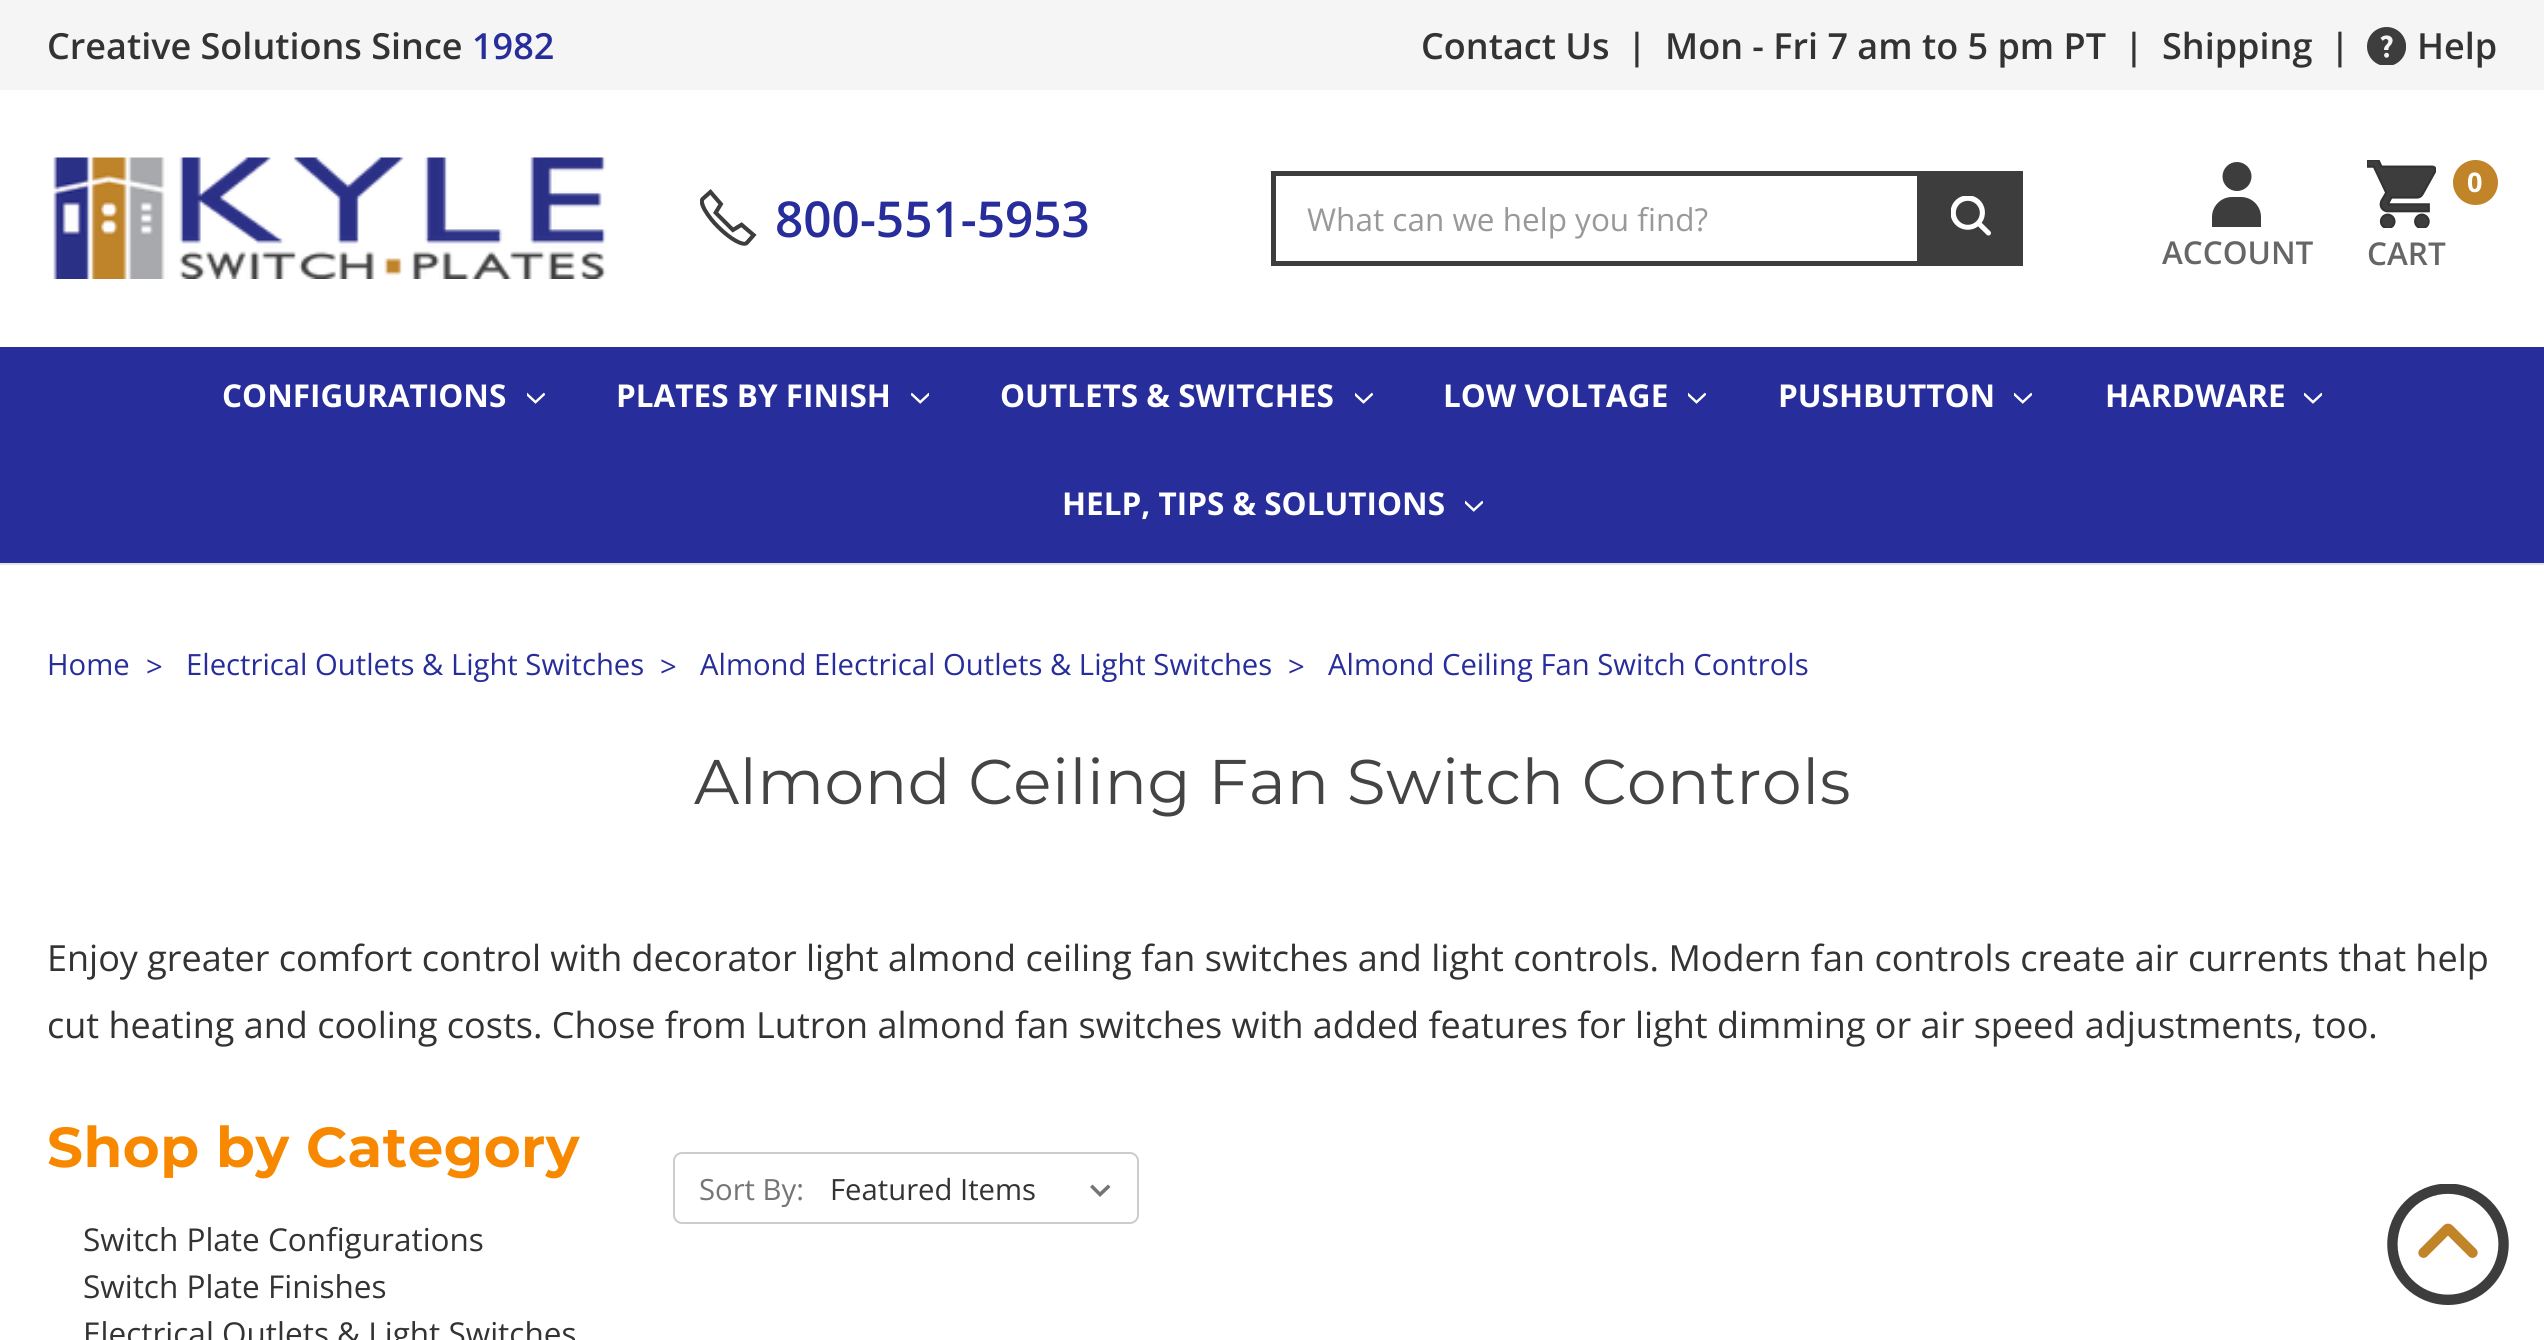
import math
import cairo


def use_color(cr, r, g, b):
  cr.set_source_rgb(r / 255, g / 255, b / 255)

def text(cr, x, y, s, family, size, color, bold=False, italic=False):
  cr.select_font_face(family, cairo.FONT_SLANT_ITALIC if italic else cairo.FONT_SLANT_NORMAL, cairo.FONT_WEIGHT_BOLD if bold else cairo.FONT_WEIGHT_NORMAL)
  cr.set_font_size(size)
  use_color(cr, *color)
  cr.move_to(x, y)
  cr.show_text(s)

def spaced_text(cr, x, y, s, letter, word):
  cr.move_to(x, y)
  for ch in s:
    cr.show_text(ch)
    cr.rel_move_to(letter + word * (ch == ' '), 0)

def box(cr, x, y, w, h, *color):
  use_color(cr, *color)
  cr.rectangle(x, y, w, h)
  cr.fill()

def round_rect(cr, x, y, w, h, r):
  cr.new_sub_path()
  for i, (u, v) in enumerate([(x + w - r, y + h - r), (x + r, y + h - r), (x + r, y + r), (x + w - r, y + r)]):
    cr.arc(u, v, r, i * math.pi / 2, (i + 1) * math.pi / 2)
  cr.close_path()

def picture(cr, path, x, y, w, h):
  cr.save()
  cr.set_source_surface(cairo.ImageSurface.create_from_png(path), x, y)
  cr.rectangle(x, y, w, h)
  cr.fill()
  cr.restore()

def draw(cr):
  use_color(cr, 255, 255, 255)
  cr.paint()
  box(cr, 0, 0, 2544, 90, 245, 245, 245)
  picture(cr, "img_01.png", 2367, 27, 39, 38)
  box(cr, 0, 563, 2544, 2, 229, 229, 229)
  picture(cr, "img_02.png", 53, 157, 553, 122)
  picture(cr, "img_03.png", 700, 189, 57, 57)
  box(cr, 1271, 171, 646, 5, 61, 61, 62)
  box(cr, 1271, 261, 646, 5, 61, 61, 62)
  box(cr, 1271, 171, 5, 95, 61, 61, 62)
  box(cr, 1917, 171, 106, 95, 61, 61, 62)
  picture(cr, "img_04.png", 1951, 196, 40, 40)
  cr.arc(2237, 176.5, 14.5, 0, 2 * math.pi)
  cr.fill()
  cr.save()
  cr.rectangle(2212, 162, 49, 65)
  cr.clip()
  cr.new_path()
  cr.move_to(2261, 229)
  cr.line_to(2261, 217)
  cr.curve_to(2261, 206, 2252, 197, 2241, 197)
  cr.line_to(2232, 197)
  cr.curve_to(2221, 197, 2212, 206, 2212, 217)
  cr.line_to(2212, 229)
  cr.close_path()
  cr.fill()
  cr.restore()
  use_color(cr, 193, 132, 41)
  cr.arc(2475.5, 182.5, 22.5, 0, 2 * math.pi)
  cr.fill()
  picture(cr, "img_05.png", 2367, 160, 69, 68)
  box(cr, 0, 347, 2544, 216, 39, 45, 154)
  picture(cr, "img_06.png", 527, 392, 18, 12)
  picture(cr, "img_07.png", 911, 392, 18, 12)
  picture(cr, "img_06.png", 1355, 392, 18, 12)
  picture(cr, "img_06.png", 1688, 392, 18, 12)
  picture(cr, "img_08.png", 2014, 392, 18, 12)
  picture(cr, "img_09.png", 2304, 392, 18, 12)
  picture(cr, "img_08.png", 1465, 500, 18, 12)
  round_rect(cr, 674, 1153, 464, 70, 8)
  use_color(cr, 204, 204, 204)
  cr.stroke()
  use_color(cr, 117, 117, 117)
  cr.new_path()
  cr.move_to(1108, 1184.5)
  cr.line_to(1100, 1192)
  cr.line_to(1092.5, 1184.5)
  cr.line_to(1090, 1187)
  cr.line_to(1100, 1197)
  cr.line_to(1110.5, 1187)
  cr.close_path()
  cr.fill()
  picture(cr, "img_10.png", 2387, 1184, 122, 121)
  text(cr, 47, 59, "Creative Solutions Since", "Open Sans SemiBold", 36, (51, 51, 51))
  text(cr, 472, 59, "1982", "Open Sans SemiBold", 36, (39, 45, 154))
  text(cr, 1421, 59, "Contact Us", "Open Sans SemiBold", 36, (51, 51, 51))
  text(cr, 1627, 59, "|", "Open Sans SemiBold", 36, (51, 51, 51))
  text(cr, 1665, 59, "Mon - Fri 7 am to 5 pm PT", "Open Sans SemiBold", 36, (51, 51, 51))
  text(cr, 2124, 59, "|", "Open Sans SemiBold", 36, (51, 51, 51))
  text(cr, 2162, 59, "Shipping", "Open Sans SemiBold", 36, (51, 51, 51))
  text(cr, 2330, 59, "|", "Open Sans SemiBold", 36, (51, 51, 51))
  text(cr, 2417, 59, "Help", "Open Sans SemiBold", 36, (51, 51, 51))
  text(cr, 775, 237, "800-551-5953", "Open Sans SemiBold", 49.5, (39, 45, 154))
  text(cr, 1307, 231, "What can we help you find?", "Open Sans", 31.5, (153, 153, 153))
  text(cr, 2162, 264, "ACCOUNT", "Open Sans SemiBold", 31.5, (102, 102, 102))
  text(cr, 2467, 192, "0", "Open Sans", 27, (255, 255, 255), bold=True)
  text(cr, 2367, 265, "CART", "Open Sans SemiBold", 31.5, (102, 102, 102))
  text(cr, 222, 407, "CONFIGURATIONS", "Open Sans", 31.5, (255, 255, 255), bold=True)
  text(cr, 616, 407, "PLATES BY FINISH", "Open Sans", 31.5, (255, 255, 255), bold=True)
  text(cr, 1000, 407, "OUTLETS & SWITCHES", "Open Sans", 31.5, (255, 255, 255), bold=True)
  text(cr, 1443, 407, "LOW VOLTAGE", "Open Sans", 31.5, (255, 255, 255), bold=True)
  text(cr, 1778, 407, "PUSHBUTTON", "Open Sans", 31.5, (255, 255, 255), bold=True)
  text(cr, 2105, 407, "HARDWARE", "Open Sans", 31.5, (255, 255, 255), bold=True)
  text(cr, 1062, 515, "HELP, TIPS & SOLUTIONS", "Open Sans", 31.5, (255, 255, 255), bold=True)
  text(cr, 47, 675, "Home", "Open Sans", 29.25, (39, 45, 154))
  text(cr, 146, 677, ">", "Open Sans", 29.25, (39, 45, 154))
  text(cr, 186, 675, "Electrical Outlets & Light Switches", "Open Sans", 29.25, (39, 45, 154))
  text(cr, 660, 677, ">", "Open Sans", 29.25, (39, 45, 154))
  text(cr, 700, 675, "Almond Electrical Outlets & Light Switches", "Open Sans", 29.25, (39, 45, 154))
  text(cr, 1288, 677, ">", "Open Sans", 29.25, (39, 45, 154))
  text(cr, 1328, 675, "Almond Ceiling Fan Switch Controls", "Open Sans", 29.25, (39, 45, 154))
  cr.select_font_face("Montserrat")
  cr.set_font_size(63)
  use_color(cr, 68, 68, 68)
  spaced_text(cr, 694, 804, "Almond Ceiling Fan Switch Controls", 0.55, 0)
  text(cr, 47, 971, "Enjoy greater comfort control with decorator light almond ceiling fan switches and light controls. Modern fan controls create air currents that help", "Open Sans", 36, (51, 51, 51))
  text(cr, 47, 1038, "cut heating and cooling costs. Chose from Lutron almond fan switches with added features for light dimming or air speed adjustments, too.", "Open Sans", 36, (51, 51, 51))
  cr.select_font_face("Montserrat", cairo.FONT_SLANT_NORMAL, cairo.FONT_WEIGHT_BOLD)
  cr.set_font_size(56.25)
  use_color(cr, 247, 136, 0)
  spaced_text(cr, 47, 1167, "Shop by Category", 0.55, 0)
  text(cr, 83, 1251, "Switch Plate Configurations", "Open Sans", 31.5, (51, 51, 51))
  text(cr, 83, 1298, "Switch Plate Finishes", "Open Sans", 31.5, (51, 51, 51))
  text(cr, 83, 1345, "Electrical Outlets & Light Switches", "Open Sans", 31.5, (51, 51, 51))
  text(cr, 699, 1200, "Sort By:", "Open Sans", 29.25, (117, 117, 117))
  text(cr, 830, 1200, "Featured Items", "Open Sans", 29.25, (51, 51, 51))


surface = cairo.ImageSurface(cairo.FORMAT_RGB24, 2544, 1340)
cr = cairo.Context(surface)
options = cairo.FontOptions()
options.set_hint_metrics(cairo.HINT_METRICS_OFF)
options.set_hint_style(cairo.HINT_STYLE_NONE)
cr.set_font_options(options)
cr.set_miter_limit(4)
draw(cr)
surface.write_to_png("out.png")
